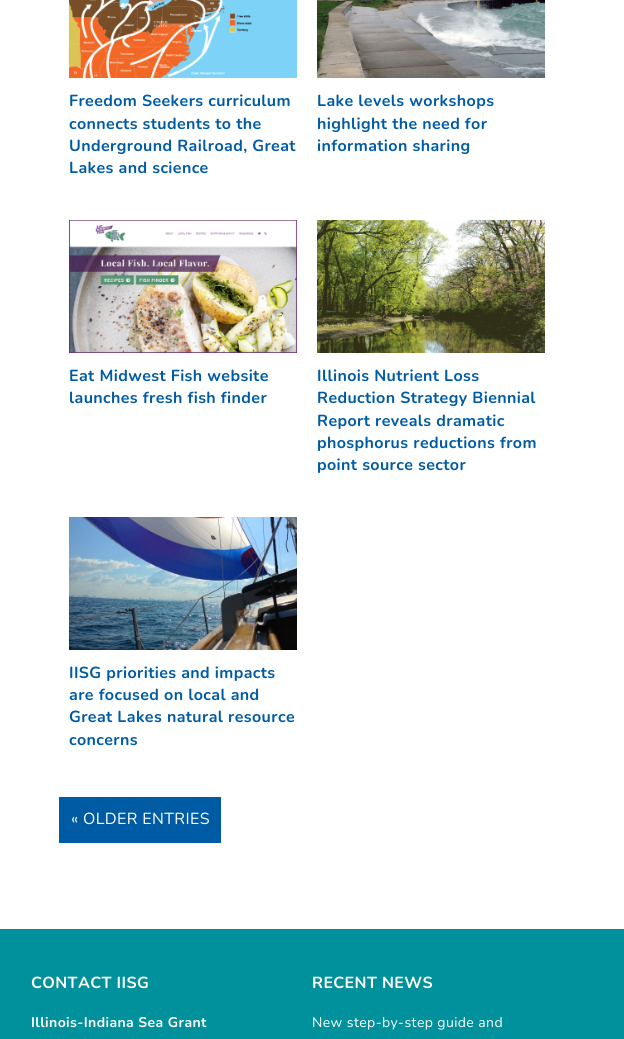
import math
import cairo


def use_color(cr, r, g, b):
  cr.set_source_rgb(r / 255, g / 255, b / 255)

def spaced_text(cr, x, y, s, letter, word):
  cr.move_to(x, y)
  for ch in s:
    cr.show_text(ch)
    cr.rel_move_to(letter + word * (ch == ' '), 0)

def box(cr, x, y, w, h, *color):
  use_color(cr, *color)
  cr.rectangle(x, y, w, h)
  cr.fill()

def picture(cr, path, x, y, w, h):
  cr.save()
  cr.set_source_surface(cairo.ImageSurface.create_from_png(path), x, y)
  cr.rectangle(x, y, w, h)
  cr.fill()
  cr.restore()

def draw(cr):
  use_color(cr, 255, 255, 255)
  cr.paint()
  picture(cr, "img_01.png", 69, 0, 228, 78)
  picture(cr, "img_02.png", 317, 0, 228, 78)
  picture(cr, "img_03.png", 69, 220, 228, 133)
  picture(cr, "img_04.png", 317, 220, 228, 133)
  picture(cr, "img_05.png", 69, 517, 228, 133)
  box(cr, 59, 797, 162, 46, 0, 91, 165)
  box(cr, 0, 929, 624, 110, 0, 145, 156)
  cr.select_font_face("Nunito", cairo.FONT_SLANT_NORMAL, cairo.FONT_WEIGHT_BOLD)
  cr.set_font_size(16)
  use_color(cr, 0, 91, 165)
  spaced_text(cr, 69, 106, "Freedom Seekers curriculum", 0.4, 0)
  spaced_text(cr, 69, 129, "connects students to the", 0.4, 0)
  spaced_text(cr, 69, 151, "Underground Railroad, Great", 0.4, 0)
  spaced_text(cr, 69, 173, "Lakes and science", 0.4, 0)
  spaced_text(cr, 317, 106, "Lake levels workshops", 0.4, 0)
  spaced_text(cr, 317, 129, "highlight the need for", 0.4, 0)
  spaced_text(cr, 317, 151, "information sharing", 0.4, 0)
  spaced_text(cr, 69, 381, "Eat Midwest Fish website", 0.4, 0)
  spaced_text(cr, 69, 403, "launches fresh fish finder", 0.4, 0)
  spaced_text(cr, 317, 381, "Illinois Nutrient Loss", 0.4, 0)
  spaced_text(cr, 317, 403, "Reduction Strategy Biennial", 0.4, 0)
  spaced_text(cr, 317, 426, "Report reveals dramatic", 0.4, 0)
  spaced_text(cr, 317, 448, "phosphorus reductions from", 0.4, 0)
  spaced_text(cr, 317, 470, "point source sector", 0.4, 0)
  spaced_text(cr, 69, 678, "IISG priorities and impacts", 0.4, 0)
  spaced_text(cr, 69, 700, "are focused on local and", 0.4, 0)
  spaced_text(cr, 69, 722, "Great Lakes natural resource", 0.4, 0)
  spaced_text(cr, 69, 745, "concerns", 0.4, 0)
  cr.select_font_face("Nunito")
  use_color(cr, 255, 255, 255)
  spaced_text(cr, 71, 824, "« OLDER ENTRIES", 0.4, 0)
  cr.select_font_face("Nunito", cairo.FONT_SLANT_NORMAL, cairo.FONT_WEIGHT_BOLD)
  spaced_text(cr, 31, 988, "CONTACT IISG", 0.4, 0)
  cr.set_font_size(14)
  spaced_text(cr, 31, 1027, "Illinois-Indiana Sea Grant", 0.4, 0)
  cr.set_font_size(16)
  spaced_text(cr, 312, 988, "RECENT NEWS", 0.4, 0)
  cr.select_font_face("Nunito")
  cr.set_font_size(14)
  spaced_text(cr, 312, 1027, "New step-by-step guide and", 0.4, 0)


surface = cairo.ImageSurface(cairo.FORMAT_RGB24, 624, 1039)
cr = cairo.Context(surface)
options = cairo.FontOptions()
options.set_hint_metrics(cairo.HINT_METRICS_OFF)
options.set_hint_style(cairo.HINT_STYLE_NONE)
cr.set_font_options(options)
cr.set_miter_limit(4)
draw(cr)
surface.write_to_png("out.png")
